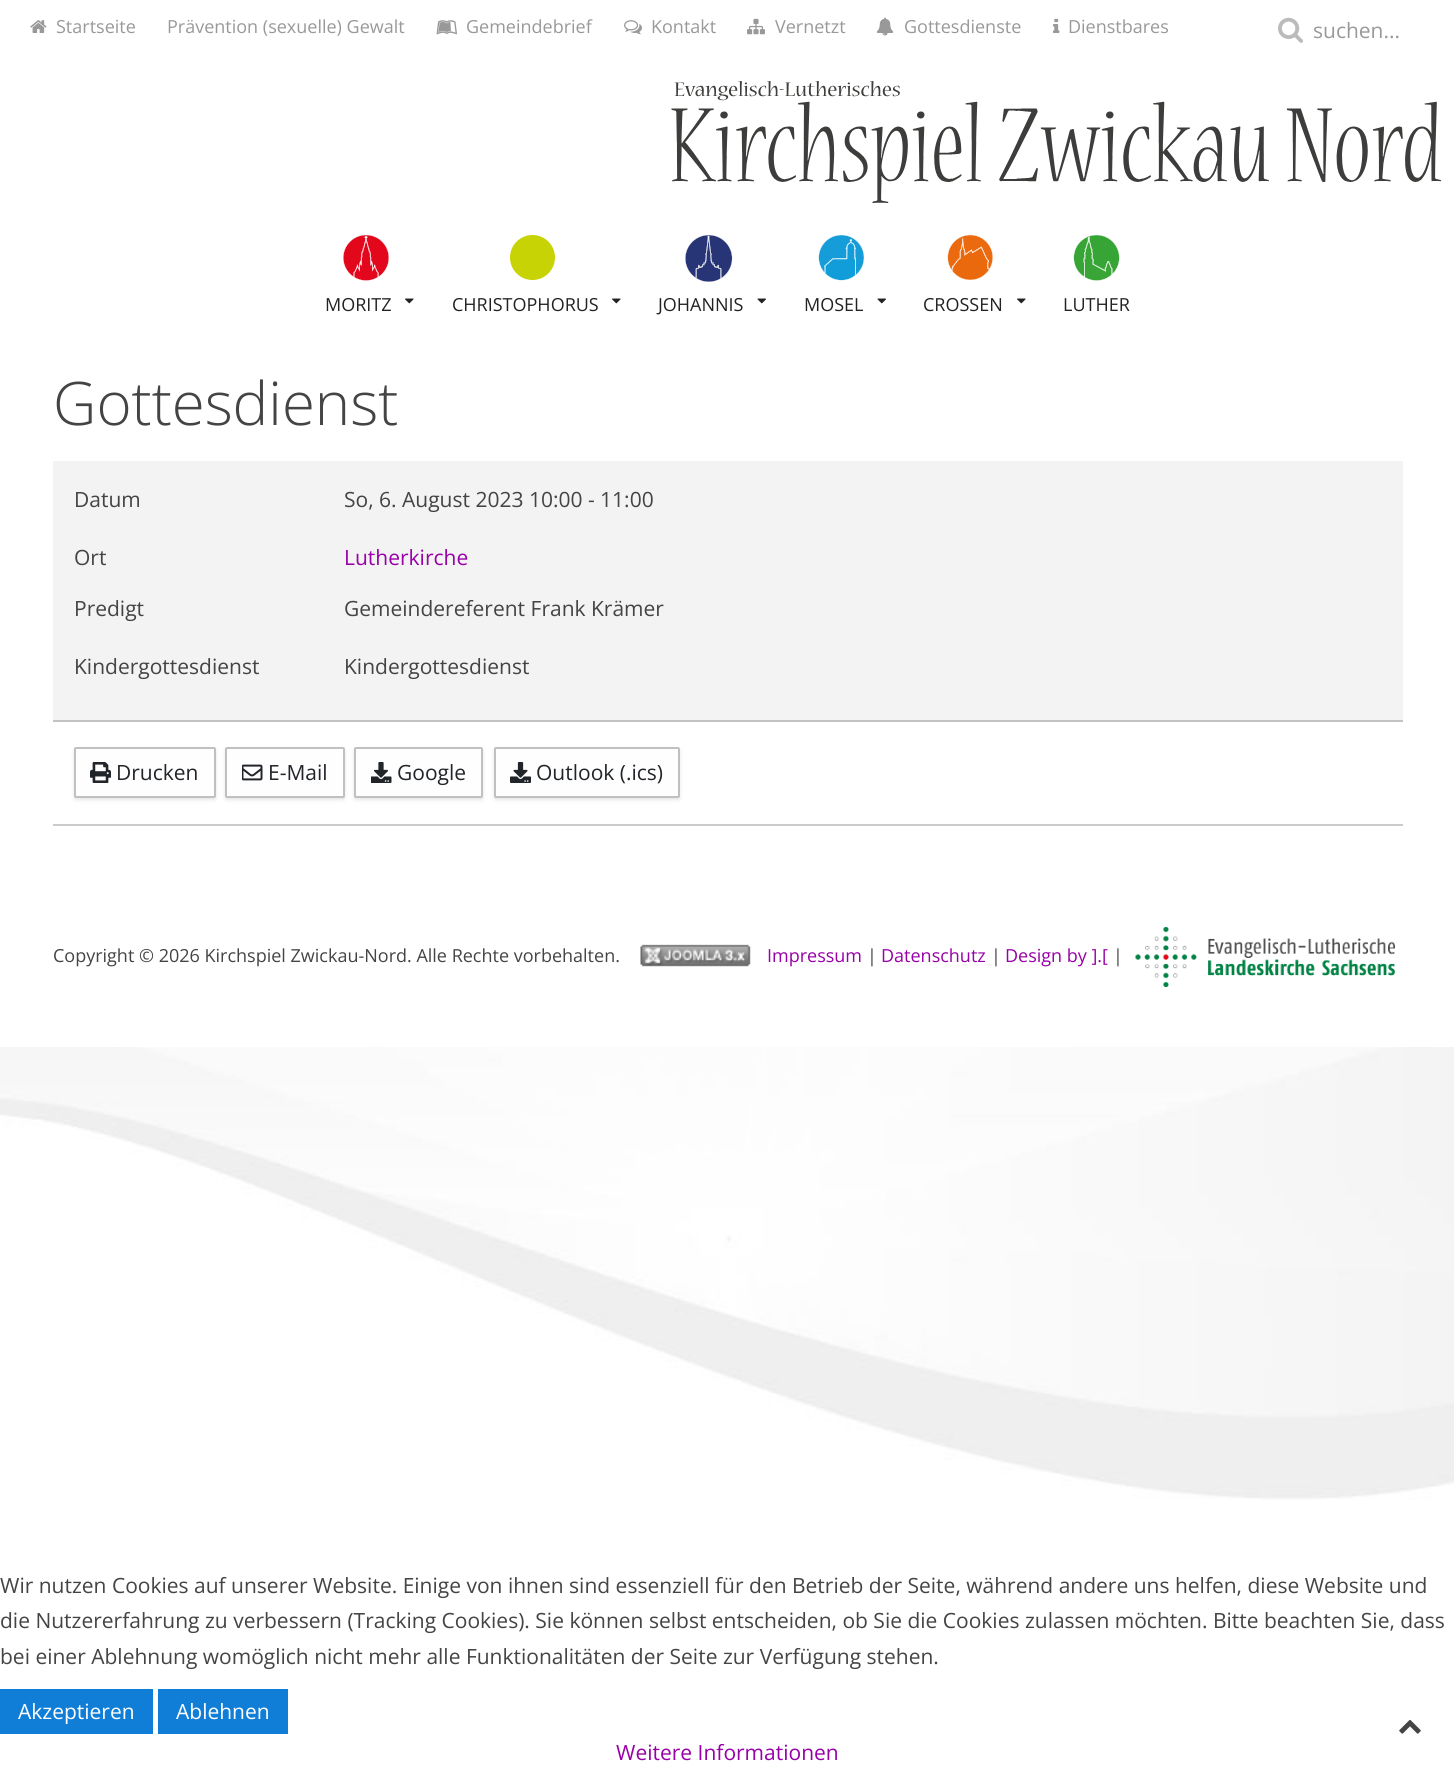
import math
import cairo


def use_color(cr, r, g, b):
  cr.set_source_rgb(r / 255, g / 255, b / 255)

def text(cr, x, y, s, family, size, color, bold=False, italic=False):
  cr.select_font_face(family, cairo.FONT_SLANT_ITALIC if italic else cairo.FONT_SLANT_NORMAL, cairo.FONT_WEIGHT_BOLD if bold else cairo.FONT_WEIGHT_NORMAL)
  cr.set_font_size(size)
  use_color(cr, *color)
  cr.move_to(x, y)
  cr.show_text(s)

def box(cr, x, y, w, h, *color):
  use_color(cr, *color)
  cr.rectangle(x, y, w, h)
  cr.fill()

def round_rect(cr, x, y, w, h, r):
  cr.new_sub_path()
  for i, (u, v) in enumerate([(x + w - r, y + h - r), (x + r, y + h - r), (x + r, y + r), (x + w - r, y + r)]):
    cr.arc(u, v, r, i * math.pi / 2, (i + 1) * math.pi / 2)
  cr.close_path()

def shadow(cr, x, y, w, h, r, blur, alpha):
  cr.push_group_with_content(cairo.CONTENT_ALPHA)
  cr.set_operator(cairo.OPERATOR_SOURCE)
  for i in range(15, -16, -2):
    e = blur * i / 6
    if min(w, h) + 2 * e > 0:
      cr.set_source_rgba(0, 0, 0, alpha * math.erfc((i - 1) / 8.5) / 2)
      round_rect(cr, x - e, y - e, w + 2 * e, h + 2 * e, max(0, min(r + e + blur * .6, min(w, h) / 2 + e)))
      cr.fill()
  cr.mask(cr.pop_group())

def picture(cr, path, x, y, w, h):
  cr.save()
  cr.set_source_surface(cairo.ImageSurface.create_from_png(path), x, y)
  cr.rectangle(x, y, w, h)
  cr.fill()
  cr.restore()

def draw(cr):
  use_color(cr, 255, 255, 255)
  cr.paint()
  picture(cr, "img_01.png", 0, 1047, 1454, 453)
  picture(cr, "img_02.png", 30, 20, 17, 13)
  picture(cr, "img_03.png", 436, 20, 21, 15)
  picture(cr, "img_04.png", 624, 20, 18, 15)
  picture(cr, "img_05.png", 747, 18, 18, 17)
  picture(cr, "img_06.png", 876, 17, 18, 19)
  picture(cr, "img_07.png", 1053, 18, 7, 15)
  picture(cr, "img_08.png", 1278, 17, 25, 26)
  picture(cr, "img_09.png", 671, 81, 771, 122)
  picture(cr, "img_10.png", 343, 235, 46, 46)
  picture(cr, "img_11.png", 405, 298, 9, 6)
  use_color(cr, 199, 211, 5)
  cr.arc(532.5, 257.5, 22.5, 0, 2 * math.pi)
  cr.fill()
  picture(cr, "img_11.png", 612, 298, 9, 6)
  picture(cr, "img_12.png", 685, 235, 48, 47)
  picture(cr, "img_13.png", 757, 298, 9, 6)
  picture(cr, "img_14.png", 818, 235, 46, 46)
  picture(cr, "img_13.png", 877, 298, 9, 6)
  picture(cr, "img_15.png", 947, 235, 46, 45)
  picture(cr, "img_11.png", 1017, 298, 9, 6)
  picture(cr, "img_16.png", 1073, 235, 47, 46)
  box(cr, 53, 461, 1350, 259, 243, 243, 243)
  box(cr, 53, 720, 1350, 2, 194, 194, 194)
  box(cr, 53, 824, 1350, 2, 204, 204, 204)
  use_color(cr, 0, 0, 0)
  shadow(cr, 74, 749, 142, 51, 2, 2, 0.1)
  use_color(cr, 254, 254, 254)
  round_rect(cr, 75, 748, 140, 49, 1)
  cr.fill_preserve()
  use_color(cr, 192, 192, 192)
  cr.stroke()
  picture(cr, "img_17.png", 90, 762, 21, 21)
  use_color(cr, 0, 0, 0)
  shadow(cr, 225, 749, 120, 51, 2, 2, 0.1)
  use_color(cr, 254, 254, 254)
  round_rect(cr, 226, 748, 118, 49, 1)
  cr.fill_preserve()
  use_color(cr, 192, 192, 192)
  cr.stroke()
  picture(cr, "img_18.png", 242, 764, 21, 17)
  use_color(cr, 0, 0, 0)
  shadow(cr, 354, 749, 129, 51, 2, 2, 0.1)
  use_color(cr, 254, 254, 254)
  round_rect(cr, 355, 748, 127, 49, 1)
  cr.fill_preserve()
  use_color(cr, 192, 192, 192)
  cr.stroke()
  picture(cr, "img_19.png", 371, 762, 21, 21)
  use_color(cr, 0, 0, 0)
  shadow(cr, 494, 749, 186, 51, 2, 2, 0.1)
  use_color(cr, 254, 254, 254)
  round_rect(cr, 495, 748, 184, 49, 1)
  cr.fill_preserve()
  use_color(cr, 192, 192, 192)
  cr.stroke()
  picture(cr, "img_20.png", 510, 762, 21, 21)
  picture(cr, "img_21.png", 640, 944, 111, 23)
  picture(cr, "img_22.png", 1135, 927, 260, 60)
  box(cr, 0, 1689, 153, 45, 16, 126, 215)
  box(cr, 158, 1689, 130, 45, 16, 126, 215)
  picture(cr, "img_23.png", 1399, 1719, 22, 15)
  text(cr, 56, 33, "Startseite", "Open Sans", 18, (153, 153, 153))
  text(cr, 167, 33, "Prävention (sexuelle) Gewalt", "Open Sans", 18, (153, 153, 153))
  text(cr, 466, 33, "Gemeindebrief", "Open Sans", 18, (153, 153, 153))
  text(cr, 651, 33, "Kontakt", "Open Sans", 18, (153, 153, 153))
  text(cr, 775, 33, "Vernetzt", "Open Sans", 18, (153, 153, 153))
  text(cr, 904, 33, "Gottesdienste", "Open Sans", 18, (153, 153, 153))
  text(cr, 1068, 33, "Dienstbares", "Open Sans", 18, (153, 153, 153))
  text(cr, 1313, 38, "suchen...", "Open Sans", 21, (153, 153, 153))
  text(cr, 325, 311, "MORITZ", "Open Sans", 18, (34, 34, 34))
  text(cr, 452, 311, "CHRISTOPHORUS", "Open Sans", 18, (34, 34, 34))
  text(cr, 658, 311, "JOHANNIS", "Open Sans", 18, (34, 34, 34))
  text(cr, 804, 311, "MOSEL", "Open Sans", 18, (34, 34, 34))
  text(cr, 923, 311, "CROSSEN", "Open Sans", 18, (34, 34, 34))
  text(cr, 1063, 311, "LUTHER", "Open Sans", 18, (34, 34, 34))
  text(cr, 53, 425, "Gottesdienst", "Open Sans Light", 60, (68, 68, 68))
  text(cr, 74, 507, "Datum", "Open Sans", 21, (68, 68, 68))
  text(cr, 344, 507, "So, 6. August 2023 10:00 - 11:00", "Open Sans", 21, (68, 68, 68))
  text(cr, 74, 565, "Ort", "Open Sans", 21, (68, 68, 68))
  text(cr, 344, 565, "Lutherkirche", "Open Sans", 21, (152, 0, 168))
  text(cr, 74, 616, "Predigt", "Open Sans", 21, (68, 68, 68))
  text(cr, 344, 616, "Gemeindereferent Frank Krämer", "Open Sans", 21, (68, 68, 68))
  text(cr, 74, 674, "Kindergottesdienst", "Open Sans", 21, (68, 68, 68))
  text(cr, 344, 674, "Kindergottesdienst", "Open Sans", 21, (68, 68, 68))
  text(cr, 116, 780, "Drucken", "Open Sans", 21, (33, 37, 41))
  text(cr, 268, 780, "E-Mail", "Open Sans", 21, (33, 37, 41))
  text(cr, 397, 780, "Google", "Open Sans", 21, (33, 37, 41))
  text(cr, 536, 780, "Outlook (.ics)", "Open Sans", 21, (33, 37, 41))
  text(cr, 53, 962, "Copyright © 2026 Kirchspiel Zwickau-Nord. Alle Rechte vorbehalten.", "Open Sans", 18, (68, 68, 68))
  text(cr, 767, 962, "Impressum", "Open Sans", 18, (152, 0, 168))
  text(cr, 867, 962, "|", "Open Sans", 18, (68, 68, 68))
  text(cr, 881, 962, "Datenschutz", "Open Sans", 18, (152, 0, 168))
  text(cr, 991, 962, "|", "Open Sans", 18, (68, 68, 68))
  text(cr, 1005, 962, "Design by ].[", "Open Sans", 18, (152, 0, 168))
  text(cr, 1113, 962, "|", "Open Sans", 18, (68, 68, 68))
  text(cr, 0, 1593, "Wir nutzen Cookies auf unserer Website. Einige von ihnen sind essenziell für den Betrieb der Seite, während andere uns helfen, diese Website und", "Open Sans", 21, (68, 68, 68))
  text(cr, 0, 1628, "die Nutzererfahrung zu verbessern (Tracking Cookies). Sie können selbst entscheiden, ob Sie die Cookies zulassen möchten. Bitte beachten Sie, dass", "Open Sans", 21, (68, 68, 68))
  text(cr, 0, 1664, "bei einer Ablehnung womöglich nicht mehr alle Funktionalitäten der Seite zur Verfügung stehen.", "Open Sans", 21, (68, 68, 68))
  text(cr, 18, 1719, "Akzeptieren", "Open Sans", 21, (255, 255, 255))
  text(cr, 176, 1719, "Ablehnen", "Open Sans", 21, (255, 255, 255))
  text(cr, 616, 1760, "Weitere Informationen", "Open Sans", 21, (152, 0, 168))


surface = cairo.ImageSurface(cairo.FORMAT_RGB24, 1454, 1770)
cr = cairo.Context(surface)
options = cairo.FontOptions()
options.set_hint_metrics(cairo.HINT_METRICS_OFF)
options.set_hint_style(cairo.HINT_STYLE_NONE)
cr.set_font_options(options)
cr.set_miter_limit(4)
draw(cr)
surface.write_to_png("out.png")
